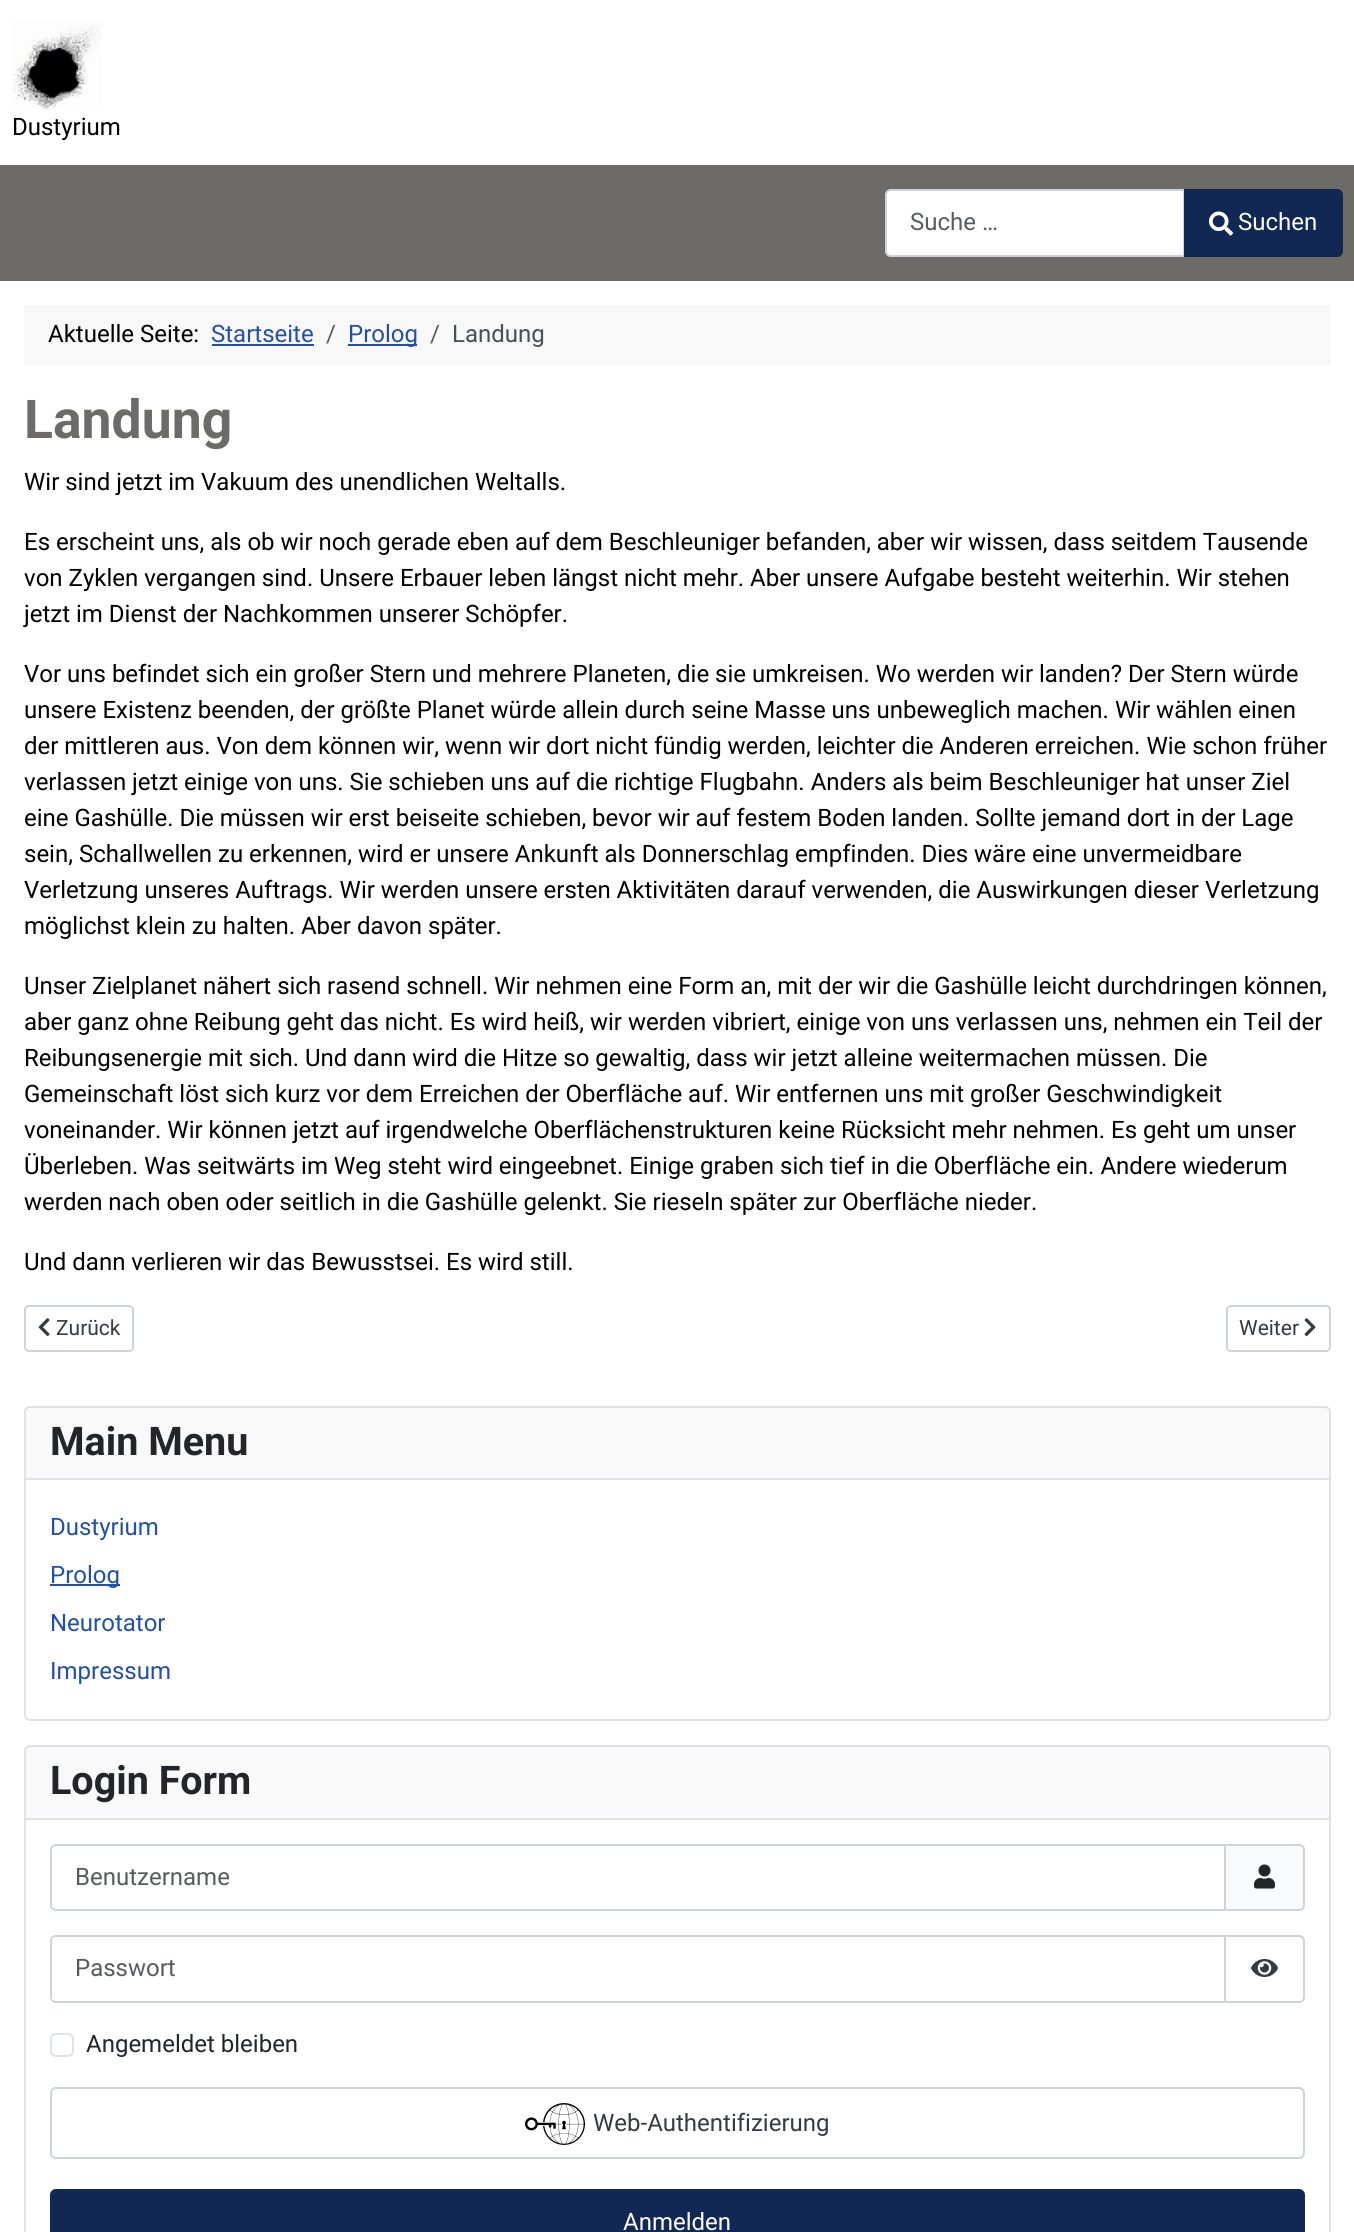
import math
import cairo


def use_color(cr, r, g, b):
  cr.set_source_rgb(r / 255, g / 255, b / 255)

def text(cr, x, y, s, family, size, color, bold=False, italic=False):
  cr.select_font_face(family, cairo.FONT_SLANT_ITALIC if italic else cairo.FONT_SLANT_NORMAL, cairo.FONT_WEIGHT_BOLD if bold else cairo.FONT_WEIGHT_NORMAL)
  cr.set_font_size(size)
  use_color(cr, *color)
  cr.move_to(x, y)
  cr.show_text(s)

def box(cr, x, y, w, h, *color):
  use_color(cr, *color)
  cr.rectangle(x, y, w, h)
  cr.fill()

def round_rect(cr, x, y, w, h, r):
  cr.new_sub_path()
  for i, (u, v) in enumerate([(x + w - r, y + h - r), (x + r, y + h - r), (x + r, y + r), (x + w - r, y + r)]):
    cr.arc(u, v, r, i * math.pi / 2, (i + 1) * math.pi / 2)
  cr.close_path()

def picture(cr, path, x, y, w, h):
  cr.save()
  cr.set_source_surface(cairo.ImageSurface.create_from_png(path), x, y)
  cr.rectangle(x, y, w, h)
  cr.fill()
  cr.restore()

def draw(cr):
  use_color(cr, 255, 255, 255)
  cr.paint()
  box(cr, 0, 165, 1354, 116, 108, 107, 104)
  picture(cr, "img_01.png", 12, 21, 90, 89)
  use_color(cr, 255, 255, 255)
  cr.new_path()
  cr.move_to(891, 190)
  cr.line_to(1184, 190)
  cr.line_to(1184, 256)
  cr.line_to(891, 256)
  cr.curve_to(888, 256, 886, 254, 886, 251)
  cr.line_to(886, 195)
  cr.curve_to(886, 192, 888, 190, 891, 190)
  cr.close_path()
  cr.fill_preserve()
  use_color(cr, 206, 212, 218)
  cr.stroke()
  use_color(cr, 17, 40, 85)
  cr.new_path()
  cr.move_to(1185, 190)
  cr.line_to(1337, 190)
  cr.curve_to(1340, 190, 1342, 192, 1342, 195)
  cr.line_to(1342, 251)
  cr.curve_to(1342, 254, 1340, 256, 1337, 256)
  cr.line_to(1185, 256)
  cr.close_path()
  cr.fill_preserve()
  cr.stroke()
  picture(cr, "img_02.png", 1209, 211, 24, 25)
  box(cr, 24, 305, 1307, 60, 248, 248, 248)
  box(cr, 212, 344, 102, 2, 34, 79, 170)
  box(cr, 348, 344, 69, 2, 34, 79, 170)
  round_rect(cr, 25, 1306, 108, 45, 4)
  use_color(cr, 206, 212, 218)
  cr.stroke()
  picture(cr, "img_03.png", 38, 1318, 12, 19)
  round_rect(cr, 1227, 1306, 103, 45, 4)
  cr.stroke()
  picture(cr, "img_04.png", 1304, 1318, 12, 19)
  round_rect(cr, 25, 1407, 1305, 313, 5)
  use_color(cr, 223, 227, 231)
  cr.stroke()
  cr.set_source_rgba(0.133, 0.149, 0.165, 0.03)
  cr.rectangle(26, 1407, 1303, 71)
  cr.fill()
  box(cr, 26, 1478, 1303, 2, 223, 227, 231)
  box(cr, 50, 1584, 70, 2, 34, 79, 170)
  round_rect(cr, 25, 1746, 1305, 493, 5)
  use_color(cr, 223, 227, 231)
  cr.stroke()
  cr.set_source_rgba(0.133, 0.149, 0.165, 0.03)
  cr.rectangle(26, 1746, 1303, 72)
  cr.fill()
  box(cr, 26, 1818, 1303, 2, 223, 227, 231)
  use_color(cr, 249, 250, 251)
  cr.new_path()
  cr.move_to(1225, 1845)
  cr.line_to(1299, 1845)
  cr.curve_to(1302, 1845, 1304, 1847, 1304, 1850)
  cr.line_to(1304, 1905)
  cr.curve_to(1304, 1908, 1302, 1910, 1299, 1910)
  cr.line_to(1225, 1910)
  cr.close_path()
  cr.fill_preserve()
  use_color(cr, 206, 212, 218)
  cr.stroke()
  cr.new_path()
  cr.move_to(56, 1845)
  cr.line_to(1225, 1845)
  cr.line_to(1225, 1910)
  cr.line_to(56, 1910)
  cr.curve_to(53, 1910, 51, 1908, 51, 1905)
  cr.line_to(51, 1850)
  cr.curve_to(51, 1847, 53, 1845, 56, 1845)
  cr.close_path()
  cr.stroke()
  picture(cr, "img_05.png", 1254, 1864, 21, 25)
  cr.new_path()
  cr.move_to(56, 1936)
  cr.line_to(1225, 1936)
  cr.line_to(1225, 2002)
  cr.line_to(56, 2002)
  cr.curve_to(53, 2002, 51, 2000, 51, 1997)
  cr.line_to(51, 1941)
  cr.curve_to(51, 1938, 53, 1936, 56, 1936)
  cr.close_path()
  cr.stroke()
  use_color(cr, 255, 255, 255)
  cr.new_path()
  cr.move_to(1225, 1936)
  cr.line_to(1299, 1936)
  cr.curve_to(1302, 1936, 1304, 1938, 1304, 1941)
  cr.line_to(1304, 1997)
  cr.curve_to(1304, 2000, 1302, 2002, 1299, 2002)
  cr.line_to(1225, 2002)
  cr.close_path()
  cr.fill_preserve()
  use_color(cr, 206, 212, 218)
  cr.stroke()
  picture(cr, "img_06.png", 1251, 1959, 27, 18)
  round_rect(cr, 51, 2034, 22, 22, 5)
  use_color(cr, 223, 227, 231)
  cr.stroke()
  round_rect(cr, 51, 2088, 1253, 70, 5)
  use_color(cr, 206, 212, 218)
  cr.stroke()
  picture(cr, "img_07.png", 525, 2103, 60, 42)
  use_color(cr, 17, 40, 85)
  round_rect(cr, 51, 2190, 1253, 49, 5)
  cr.fill_preserve()
  cr.stroke()
  text(cr, 12, 135, "Dustyrium", "Roboto", 24, (0, 0, 0))
  text(cr, 910, 230, "Suche …", "Roboto", 24, (88, 91, 94))
  text(cr, 1238, 230, "Suchen", "Roboto", 24, (255, 255, 255))
  text(cr, 48, 342, "Aktuelle Seite:", "Roboto", 24, (0, 0, 0))
  text(cr, 211, 342, "Startseite", "Roboto", 24, (34, 79, 170))
  text(cr, 326, 342, "/", "Roboto", 24, (88, 91, 94))
  text(cr, 348, 342, "Prolog", "Roboto", 24, (34, 79, 170))
  text(cr, 430, 342, "/", "Roboto", 24, (88, 91, 94))
  text(cr, 452, 342, "Landung", "Roboto", 24, (72, 79, 86))
  text(cr, 24, 438, "Landung", "Roboto", 53.5, (108, 107, 104), bold=True)
  text(cr, 24, 490, "Wir sind jetzt im Vakuum des unendlichen Weltalls.", "Roboto", 24, (0, 0, 0))
  text(cr, 24, 550, "Es erscheint uns, als ob wir noch gerade eben auf dem Beschleuniger befanden, aber wir wissen, dass seitdem Tausende", "Roboto", 24, (0, 0, 0))
  text(cr, 24, 586, "von Zyklen vergangen sind. Unsere Erbauer leben längst nicht mehr. Aber unsere Aufgabe besteht weiterhin. Wir stehen", "Roboto", 24, (0, 0, 0))
  text(cr, 24, 622, "jetzt im Dienst der Nachkommen unserer Schöpfer.", "Roboto", 24, (0, 0, 0))
  text(cr, 24, 682, "Vor uns befindet sich ein großer Stern und mehrere Planeten, die sie umkreisen. Wo werden wir landen? Der Stern würde", "Roboto", 24, (0, 0, 0))
  text(cr, 24, 718, "unsere Existenz beenden, der größte Planet würde allein durch seine Masse uns unbeweglich machen. Wir wählen einen", "Roboto", 24, (0, 0, 0))
  text(cr, 24, 754, "der mittleren aus. Von dem können wir, wenn wir dort nicht fündig werden, leichter die Anderen erreichen. Wie schon früher", "Roboto", 24, (0, 0, 0))
  text(cr, 24, 790, "verlassen jetzt einige von uns. Sie schieben uns auf die richtige Flugbahn. Anders als beim Beschleuniger hat unser Ziel", "Roboto", 24, (0, 0, 0))
  text(cr, 24, 826, "eine Gashülle. Die müssen wir erst beiseite schieben, bevor wir auf festem Boden landen. Sollte jemand dort in der Lage", "Roboto", 24, (0, 0, 0))
  text(cr, 24, 862, "sein, Schallwellen zu erkennen, wird er unsere Ankunft als Donnerschlag empfinden. Dies wäre eine unvermeidbare", "Roboto", 24, (0, 0, 0))
  text(cr, 24, 898, "Verletzung unseres Auftrags. Wir werden unsere ersten Aktivitäten darauf verwenden, die Auswirkungen dieser Verletzung", "Roboto", 24, (0, 0, 0))
  text(cr, 24, 934, "möglichst klein zu halten. Aber davon später.", "Roboto", 24, (0, 0, 0))
  text(cr, 24, 994, "Unser Zielplanet nähert sich rasend schnell. Wir nehmen eine Form an, mit der wir die Gashülle leicht durchdringen können,", "Roboto", 24, (0, 0, 0))
  text(cr, 24, 1030, "aber ganz ohne Reibung geht das nicht. Es wird heiß, wir werden vibriert, einige von uns verlassen uns, nehmen ein Teil der", "Roboto", 24, (0, 0, 0))
  text(cr, 24, 1066, "Reibungsenergie mit sich. Und dann wird die Hitze so gewaltig, dass wir jetzt alleine weitermachen müssen. Die", "Roboto", 24, (0, 0, 0))
  text(cr, 24, 1102, "Gemeinschaft löst sich kurz vor dem Erreichen der Oberfläche auf. Wir entfernen uns mit großer Geschwindigkeit", "Roboto", 24, (0, 0, 0))
  text(cr, 24, 1138, "voneinander. Wir können jetzt auf irgendwelche Oberflächenstrukturen keine Rücksicht mehr nehmen. Es geht um unser", "Roboto", 24, (0, 0, 0))
  text(cr, 24, 1174, "Überleben. Was seitwärts im Weg steht wird eingeebnet. Einige graben sich tief in die Oberfläche ein. Andere wiederum", "Roboto", 24, (0, 0, 0))
  text(cr, 24, 1210, "werden nach oben oder seitlich in die Gashülle gelenkt. Sie rieseln später zur Oberfläche nieder.", "Roboto", 24, (0, 0, 0))
  text(cr, 24, 1270, "Und dann verlieren wir das Bewusstsei. Es wird still.", "Roboto", 24, (0, 0, 0))
  text(cr, 56, 1335, "Zurück", "Roboto", 21, (53, 59, 65))
  text(cr, 1239, 1335, "Weiter", "Roboto", 21, (53, 59, 65))
  text(cr, 50, 1455, "Main Menu", "Roboto", 39.5, (34, 38, 42), bold=True)
  text(cr, 50, 1535, "Dustyrium", "Roboto", 24, (34, 79, 170))
  text(cr, 50, 1583, "Prolog", "Roboto", 24, (34, 79, 170))
  text(cr, 50, 1631, "Neurotator", "Roboto", 24, (34, 79, 170))
  text(cr, 50, 1679, "Impressum", "Roboto", 24, (34, 79, 170))
  text(cr, 50, 1794, "Login Form", "Roboto", 39.5, (34, 38, 42), bold=True)
  text(cr, 75, 1885, "Benutzername", "Roboto", 24, (88, 91, 94))
  text(cr, 75, 1976, "Passwort", "Roboto", 24, (88, 91, 94))
  text(cr, 86, 2052, "Angemeldet bleiben", "Roboto", 24, (34, 38, 42))
  text(cr, 593, 2131, "Web-Authentifizierung", "Roboto", 24, (53, 59, 65))
  text(cr, 623, 2230, "Anmelden", "Roboto", 24, (255, 255, 255))


surface = cairo.ImageSurface(cairo.FORMAT_RGB24, 1354, 2232)
cr = cairo.Context(surface)
options = cairo.FontOptions()
options.set_hint_metrics(cairo.HINT_METRICS_OFF)
options.set_hint_style(cairo.HINT_STYLE_NONE)
cr.set_font_options(options)
cr.set_miter_limit(4)
draw(cr)
surface.write_to_png("out.png")
